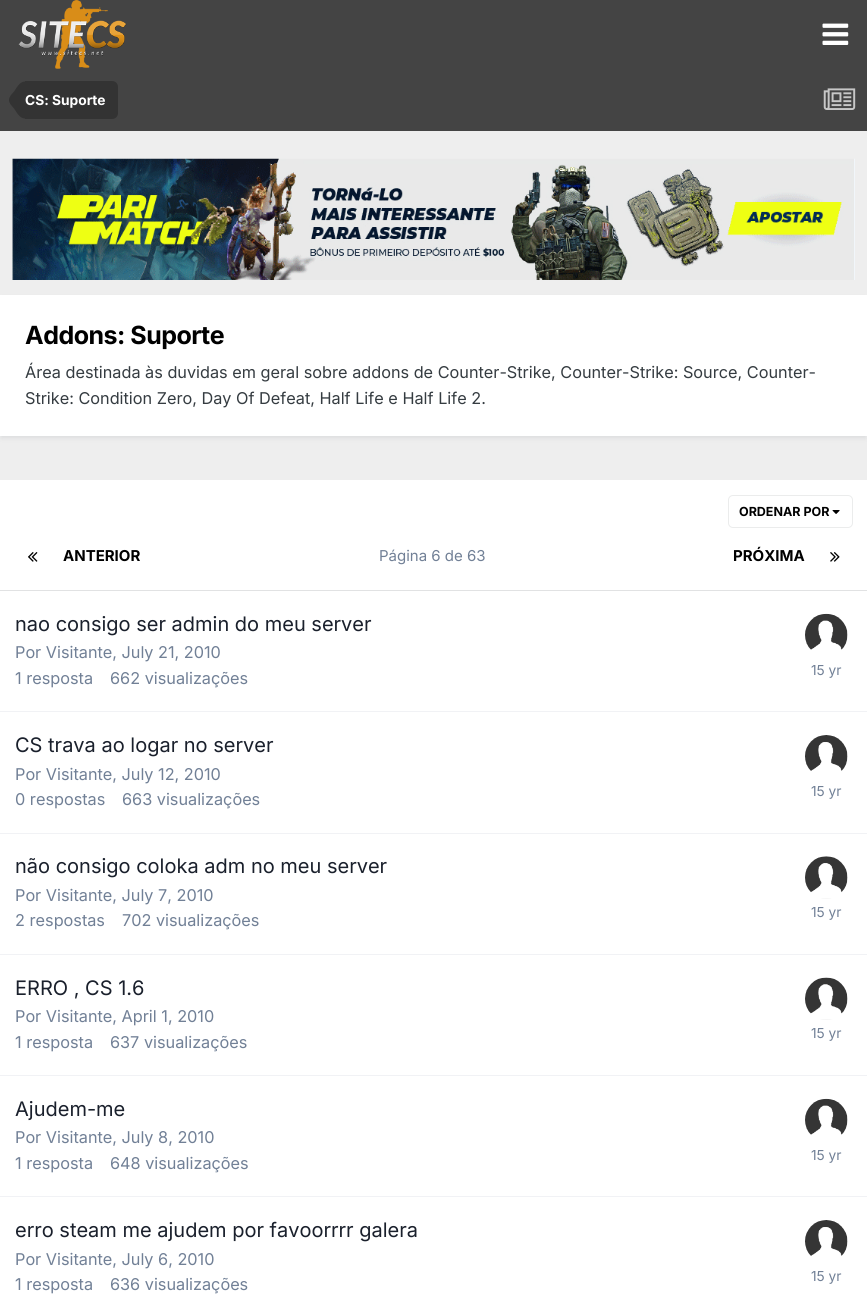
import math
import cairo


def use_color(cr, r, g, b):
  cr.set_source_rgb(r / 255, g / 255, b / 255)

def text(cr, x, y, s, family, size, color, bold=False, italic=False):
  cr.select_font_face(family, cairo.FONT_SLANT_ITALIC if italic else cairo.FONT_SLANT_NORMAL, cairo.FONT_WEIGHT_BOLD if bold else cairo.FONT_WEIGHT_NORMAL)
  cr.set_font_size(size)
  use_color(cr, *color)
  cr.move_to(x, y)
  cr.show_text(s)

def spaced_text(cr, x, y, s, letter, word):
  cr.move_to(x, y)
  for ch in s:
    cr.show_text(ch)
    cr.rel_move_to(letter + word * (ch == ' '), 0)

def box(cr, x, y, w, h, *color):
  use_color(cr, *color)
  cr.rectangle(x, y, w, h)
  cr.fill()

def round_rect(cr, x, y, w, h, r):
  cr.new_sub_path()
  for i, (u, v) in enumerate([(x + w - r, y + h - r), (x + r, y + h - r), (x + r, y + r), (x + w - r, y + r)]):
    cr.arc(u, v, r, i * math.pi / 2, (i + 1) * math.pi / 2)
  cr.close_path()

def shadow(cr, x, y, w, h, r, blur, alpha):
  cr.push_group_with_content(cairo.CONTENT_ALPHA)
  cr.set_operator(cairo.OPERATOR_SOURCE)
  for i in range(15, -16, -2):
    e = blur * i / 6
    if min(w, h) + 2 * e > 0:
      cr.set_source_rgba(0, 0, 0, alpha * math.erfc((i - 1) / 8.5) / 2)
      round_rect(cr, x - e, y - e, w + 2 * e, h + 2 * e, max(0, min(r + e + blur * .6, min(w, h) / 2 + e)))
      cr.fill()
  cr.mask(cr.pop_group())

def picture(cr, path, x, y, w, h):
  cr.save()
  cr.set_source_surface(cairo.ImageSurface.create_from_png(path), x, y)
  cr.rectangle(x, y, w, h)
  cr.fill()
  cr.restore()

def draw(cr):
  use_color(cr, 238, 238, 238)
  cr.paint()
  box(cr, 0, 0, 867, 131, 68, 68, 68)
  picture(cr, "img_01.png", 18, 0, 109, 69)
  picture(cr, "img_02.png", 822, 23, 27, 22)
  use_color(cr, 51, 51, 51)
  cr.new_path()
  cr.move_to(25, 81)
  cr.line_to(112, 81)
  cr.curve_to(115.5, 81, 118, 83.5, 118, 87)
  cr.line_to(118, 113)
  cr.curve_to(118, 116.5, 115.5, 119, 112, 119)
  cr.line_to(25, 119)
  cr.close_path()
  cr.fill()
  cr.new_path()
  cr.move_to(25, 100)
  cr.line_to(25, 118.5)
  cr.curve_to(19.5, 118.5, 16.5, 112, 14, 108.5)
  cr.curve_to(12, 106, 9, 103.5, 9, 100)
  cr.close_path()
  cr.move_to(25, 100)
  cr.line_to(9, 100)
  cr.curve_to(9, 96.5, 12, 94, 14, 91.5)
  cr.curve_to(16.5, 88, 19.5, 81.5, 25, 81.5)
  cr.close_path()
  cr.fill()
  picture(cr, "img_03.png", 823, 88, 33, 22)
  picture(cr, "img_04.png", 12, 158, 843, 122)
  use_color(cr, 45, 55, 72)
  shadow(cr, 1, 299, 865, 139, 0, 2.5, 0.1)
  box(cr, 0, 295, 867, 141, 255, 255, 255)
  box(cr, 0, 480, 867, 824, 255, 255, 255)
  box(cr, 0, 590, 867, 1, 225, 226, 227)
  picture(cr, "img_05.png", 832, 510, 8, 4)
  round_rect(cr, 728.5, 495.5, 124, 32, 4.5)
  use_color(cr, 235, 236, 236)
  cr.set_line_width(1)
  cr.stroke()
  picture(cr, "img_06.png", 28, 552, 10, 10)
  picture(cr, "img_07.png", 830, 552, 10, 10)
  box(cr, 0, 711, 867, 1, 241, 242, 245)
  picture(cr, "img_08.png", 805, 613, 43, 37)
  box(cr, 0, 833, 867, 1, 241, 242, 245)
  picture(cr, "img_09.png", 805, 735, 43, 36)
  box(cr, 0, 954, 867, 1, 241, 242, 245)
  picture(cr, "img_10.png", 805, 856, 43, 43)
  box(cr, 0, 1075, 867, 1, 241, 242, 245)
  picture(cr, "img_11.png", 805, 977, 43, 43)
  box(cr, 0, 1196, 867, 1, 241, 242, 245)
  picture(cr, "img_08.png", 805, 1098, 43, 37)
  picture(cr, "img_12.png", 805, 1220, 43, 36)
  text(cr, 25, 105, "CS: Suporte", "Inter", 13.75, (255, 255, 255), bold=True)
  cr.set_font_size(25)
  use_color(cr, 0, 0, 0)
  spaced_text(cr, 25, 344, "Addons: Suporte", -0.5, 0)
  text(cr, 25, 378, "Área destinada às duvidas em geral sobre addons de Counter-Strike, Counter-Strike: Source, Counter-", "Inter", 16.25, (53, 60, 65))
  text(cr, 25, 404, "Strike: Condition Zero, Day Of Defeat, Half Life e Half Life 2.", "Inter", 16.25, (53, 60, 65))
  text(cr, 739, 516, "ORDENAR POR", "Inter", 12.5, (0, 0, 0), bold=True)
  text(cr, 63, 561, "ANTERIOR", "Inter", 15, (0, 0, 0), bold=True)
  text(cr, 379, 561, "Página 6 de 63", "Inter", 15, (113, 128, 150))
  text(cr, 733, 561, "PRÓXIMA", "Inter", 15, (0, 0, 0), bold=True)
  text(cr, 15, 631, "nao consigo ser admin do meu server", "Inter", 20, (26, 32, 44))
  text(cr, 15, 658, "Por Visitante, July 21, 2010", "Inter", 16.25, (113, 128, 150))
  text(cr, 15, 684, "1 resposta", "Inter", 16.25, (113, 128, 150))
  text(cr, 110, 684, "662 visualizações", "Inter", 16.25, (113, 128, 150))
  text(cr, 811, 675, "15 yr", "Inter", 13.75, (113, 128, 150))
  text(cr, 15, 752, "CS trava ao logar no server", "Inter", 20, (26, 32, 44))
  text(cr, 15, 780, "Por Visitante, July 12, 2010", "Inter", 16.25, (113, 128, 150))
  text(cr, 15, 805, "0 respostas", "Inter", 16.25, (113, 128, 150))
  text(cr, 122, 805, "663 visualizações", "Inter", 16.25, (113, 128, 150))
  text(cr, 811, 796, "15 yr", "Inter", 13.75, (113, 128, 150))
  text(cr, 15, 873, "não consigo coloka adm no meu server", "Inter", 20, (26, 32, 44))
  text(cr, 15, 901, "Por Visitante, July 7, 2010", "Inter", 16.25, (113, 128, 150))
  text(cr, 15, 926, "2 respostas", "Inter", 16.25, (113, 128, 150))
  text(cr, 122, 926, "702 visualizações", "Inter", 16.25, (113, 128, 150))
  text(cr, 811, 917, "15 yr", "Inter", 13.75, (113, 128, 150))
  text(cr, 15, 995, "ERRO , CS 1.6", "Inter", 20, (26, 32, 44))
  text(cr, 15, 1022, "Por Visitante, April 1, 2010", "Inter", 16.25, (113, 128, 150))
  text(cr, 15, 1048, "1 resposta", "Inter", 16.25, (113, 128, 150))
  text(cr, 110, 1048, "637 visualizações", "Inter", 16.25, (113, 128, 150))
  text(cr, 811, 1038, "15 yr", "Inter", 13.75, (113, 128, 150))
  text(cr, 15, 1116, "Ajudem-me", "Inter", 20, (26, 32, 44))
  text(cr, 15, 1143, "Por Visitante, July 8, 2010", "Inter", 16.25, (113, 128, 150))
  text(cr, 15, 1169, "1 resposta", "Inter", 16.25, (113, 128, 150))
  text(cr, 110, 1169, "648 visualizações", "Inter", 16.25, (113, 128, 150))
  text(cr, 811, 1160, "15 yr", "Inter", 13.75, (113, 128, 150))
  text(cr, 15, 1237, "erro steam me ajudem por favoorrrr galera", "Inter", 20, (26, 32, 44))
  text(cr, 15, 1265, "Por Visitante, July 6, 2010", "Inter", 16.25, (113, 128, 150))
  text(cr, 15, 1290, "1 resposta", "Inter", 16.25, (113, 128, 150))
  text(cr, 110, 1290, "636 visualizações", "Inter", 16.25, (113, 128, 150))
  text(cr, 811, 1281, "15 yr", "Inter", 13.75, (113, 128, 150))


surface = cairo.ImageSurface(cairo.FORMAT_RGB24, 867, 1304)
cr = cairo.Context(surface)
options = cairo.FontOptions()
options.set_hint_metrics(cairo.HINT_METRICS_OFF)
options.set_hint_style(cairo.HINT_STYLE_NONE)
cr.set_font_options(options)
cr.set_miter_limit(4)
draw(cr)
surface.write_to_png("out.png")
